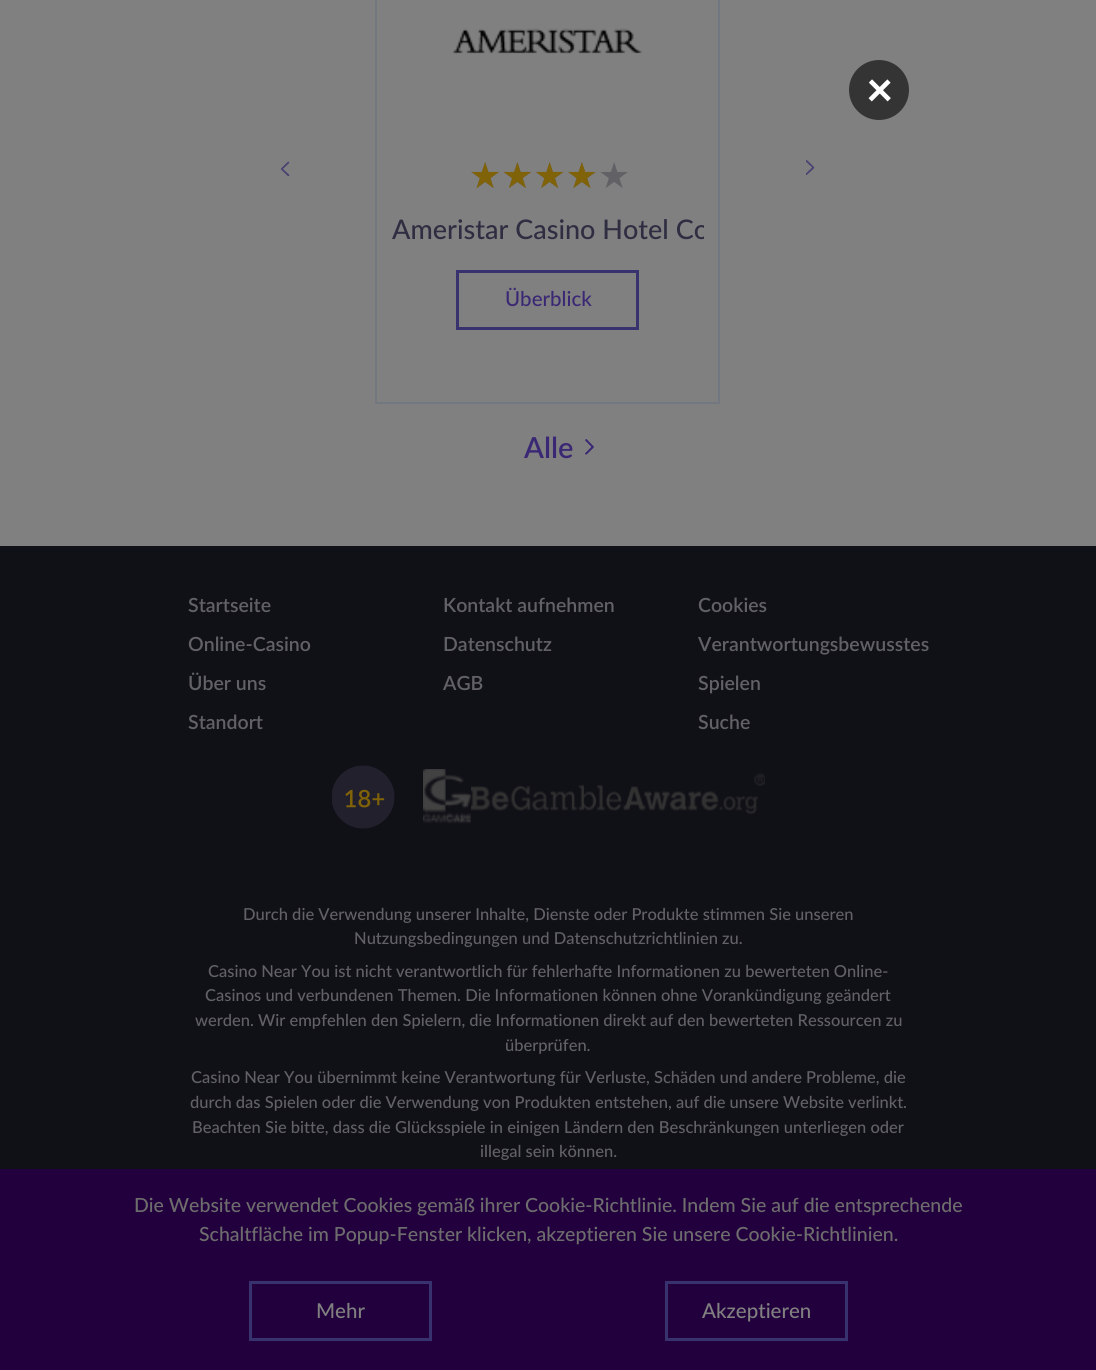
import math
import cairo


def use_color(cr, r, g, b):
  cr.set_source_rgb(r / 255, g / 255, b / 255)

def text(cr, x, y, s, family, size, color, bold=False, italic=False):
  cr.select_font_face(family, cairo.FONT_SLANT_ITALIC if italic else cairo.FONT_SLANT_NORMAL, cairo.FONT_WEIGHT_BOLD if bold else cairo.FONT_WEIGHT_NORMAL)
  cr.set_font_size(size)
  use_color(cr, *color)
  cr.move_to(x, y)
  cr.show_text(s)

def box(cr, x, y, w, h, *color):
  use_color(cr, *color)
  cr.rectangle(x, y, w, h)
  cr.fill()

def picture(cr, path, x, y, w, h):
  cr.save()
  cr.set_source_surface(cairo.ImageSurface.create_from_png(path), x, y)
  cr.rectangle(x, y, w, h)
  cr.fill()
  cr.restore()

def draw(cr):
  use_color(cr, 128, 128, 128)
  cr.paint()
  use_color(cr, 52, 52, 52)
  cr.arc(879, 90, 30, 0, 2 * math.pi)
  cr.fill()
  picture(cr, "img_01.png", 281, 161, 9, 15)
  cr.rectangle(376, -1, 343, 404)
  use_color(cr, 115, 119, 128)
  cr.stroke()
  picture(cr, "img_02.png", 453, 28, 189, 26)
  cr.rectangle(457.5, 271.5, 180, 57)
  use_color(cr, 56, 50, 111)
  cr.set_line_width(3)
  cr.stroke()
  picture(cr, "img_03.png", 806, 160, 9, 15)
  picture(cr, "img_04.png", 585, 439, 9, 16)
  box(cr, 0, 546, 1096, 623, 16, 16, 23)
  picture(cr, "img_05.png", 332, 765, 63, 64)
  picture(cr, "img_06.png", 423, 769, 48, 55)
  picture(cr, "img_07.png", 471, 773, 294, 41)
  box(cr, 0, 1169, 1096, 201, 34, 0, 61)
  cr.rectangle(250.5, 1282.5, 180, 57)
  use_color(cr, 56, 50, 111)
  cr.stroke()
  cr.rectangle(666.5, 1282.5, 180, 57)
  cr.stroke()
  text(cr, 866, 106, "×", "Lato", 45, (255, 255, 255), bold=True)
  text(cr, 469, 188, "★★★★★", "DejaVu Sans", 36, (98, 98, 102))
  text(cr, 469, 188, "★★★★", "DejaVu Sans", 36, (128, 98, 8))
  cr.save()
  cr.rectangle(392, 213, 312, 33)
  cr.clip()
  text(cr, 392, 239, "Ameristar Casino Hotel Co", "Lato Medium", 27, (46, 45, 65))
  cr.restore()
  text(cr, 505, 306, "Überblick", "Lato Medium", 20.5, (59, 40, 117))
  text(cr, 524, 458, "Alle", "Lato SemiBold", 29, (59, 40, 117))
  text(cr, 188, 612, "Startseite", "Lato SemiBold", 19.5, (98, 98, 102))
  text(cr, 188, 651, "Online-Casino", "Lato SemiBold", 19.5, (98, 98, 102))
  text(cr, 188, 690, "Über uns", "Lato SemiBold", 19.5, (98, 98, 102))
  text(cr, 188, 729, "Standort", "Lato SemiBold", 19.5, (98, 98, 102))
  text(cr, 443, 612, "Kontakt aufnehmen", "Lato SemiBold", 19.5, (98, 98, 102))
  text(cr, 443, 651, "Datenschutz", "Lato SemiBold", 19.5, (98, 98, 102))
  text(cr, 443, 690, "AGB", "Lato SemiBold", 19.5, (98, 98, 102))
  text(cr, 698, 612, "Cookies", "Lato SemiBold", 19.5, (98, 98, 102))
  text(cr, 698, 651, "Verantwortungsbewusstes", "Lato SemiBold", 19.5, (98, 98, 102))
  text(cr, 698, 690, "Spielen", "Lato SemiBold", 19.5, (98, 98, 102))
  text(cr, 698, 729, "Suche", "Lato SemiBold", 19.5, (98, 98, 102))
  text(cr, 243, 920, "Durch die Verwendung unserer Inhalte, Dienste oder Produkte stimmen Sie unseren", "Lato Medium", 16.5, (98, 98, 102))
  text(cr, 354, 944, "Nutzungsbedingungen und Datenschutzrichtlinien zu.", "Lato Medium", 16.5, (98, 98, 102))
  text(cr, 208, 977, "Casino Near You ist nicht verantwortlich für fehlerhafte Informationen zu bewerteten Online-", "Lato Medium", 16.5, (98, 98, 102))
  text(cr, 205, 1001, "Casinos und verbundenen Themen. Die Informationen können ohne Vorankündigung geändert", "Lato Medium", 16.5, (98, 98, 102))
  text(cr, 195, 1026, "werden. Wir empfehlen den Spielern, die Informationen direkt auf den bewerteten Ressourcen zu", "Lato Medium", 16.5, (98, 98, 102))
  text(cr, 505, 1051, "überprüfen.", "Lato Medium", 16.5, (98, 98, 102))
  text(cr, 191, 1083, "Casino Near You übernimmt keine Verantwortung für Verluste, Schäden und andere Probleme, die", "Lato Medium", 16.5, (98, 98, 102))
  text(cr, 190, 1108, "durch das Spielen oder die Verwendung von Produkten entstehen, auf die unsere Website verlinkt.", "Lato Medium", 16.5, (98, 98, 102))
  text(cr, 192, 1133, "Beachten Sie bitte, dass die Glücksspiele in einigen Ländern den Beschränkungen unterliegen oder", "Lato Medium", 16.5, (98, 98, 102))
  text(cr, 480, 1157, "illegal sein können.", "Lato Medium", 16.5, (98, 98, 102))
  text(cr, 134, 1212, "Die Website verwendet Cookies gemäß ihrer Cookie-Richtlinie. Indem Sie auf die entsprechende", "Lato Medium", 19.5, (109, 109, 109))
  text(cr, 199, 1241, "Schaltfläche im Popup-Fenster klicken, akzeptieren Sie unsere Cookie-Richtlinien.", "Lato Medium", 19.5, (109, 109, 109))
  text(cr, 316, 1318, "Mehr", "Lato Medium", 20.5, (128, 128, 128))
  text(cr, 702, 1318, "Akzeptieren", "Lato Medium", 20.5, (128, 128, 128))


surface = cairo.ImageSurface(cairo.FORMAT_RGB24, 1096, 1370)
cr = cairo.Context(surface)
options = cairo.FontOptions()
options.set_hint_metrics(cairo.HINT_METRICS_OFF)
options.set_hint_style(cairo.HINT_STYLE_NONE)
cr.set_font_options(options)
cr.set_miter_limit(4)
draw(cr)
surface.write_to_png("out.png")
